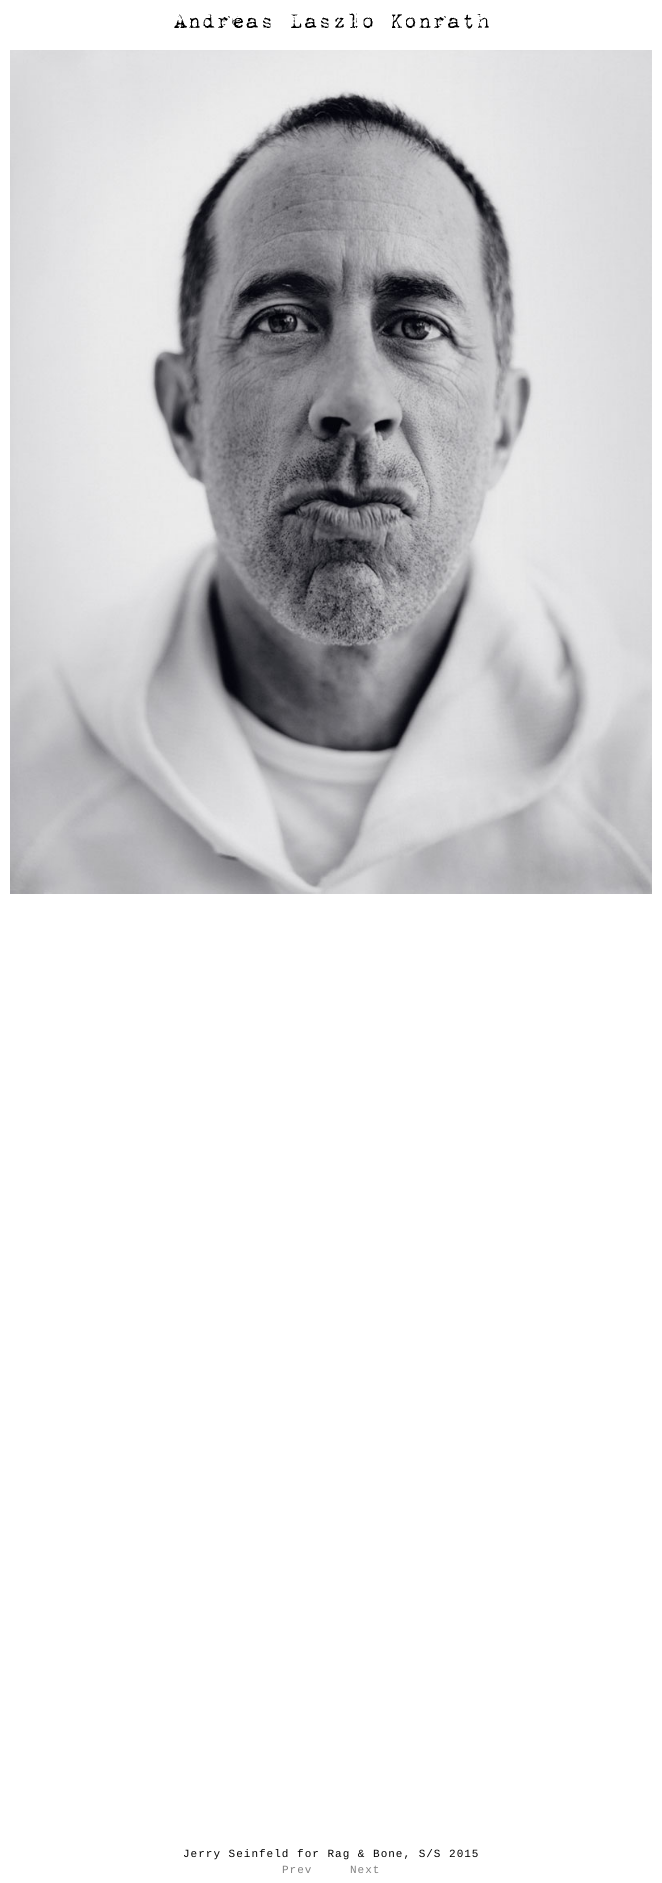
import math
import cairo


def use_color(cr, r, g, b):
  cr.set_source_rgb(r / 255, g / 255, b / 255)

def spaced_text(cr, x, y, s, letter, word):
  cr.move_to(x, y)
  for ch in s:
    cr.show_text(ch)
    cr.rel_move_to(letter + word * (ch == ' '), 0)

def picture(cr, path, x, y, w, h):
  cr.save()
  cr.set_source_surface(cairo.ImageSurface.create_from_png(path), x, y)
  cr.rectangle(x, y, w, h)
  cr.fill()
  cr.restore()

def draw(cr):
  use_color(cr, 255, 255, 255)
  cr.paint()
  picture(cr, "img_01.png", 174, 13, 315, 16)
  picture(cr, "img_02.png", 10, 50, 642, 844)
  cr.select_font_face("Liberation Mono")
  cr.set_font_size(11)
  use_color(cr, 0, 0, 0)
  spaced_text(cr, 183, 1857, "Jerry Seinfeld for Rag & Bone, S/S 2015", 1, 0)
  use_color(cr, 128, 128, 128)
  spaced_text(cr, 282, 1873, "Prev", 1, 0)
  spaced_text(cr, 350, 1873, "Next", 1, 0)


surface = cairo.ImageSurface(cairo.FORMAT_RGB24, 662, 1883)
cr = cairo.Context(surface)
options = cairo.FontOptions()
options.set_hint_metrics(cairo.HINT_METRICS_OFF)
options.set_hint_style(cairo.HINT_STYLE_NONE)
cr.set_font_options(options)
cr.set_miter_limit(4)
draw(cr)
surface.write_to_png("out.png")
